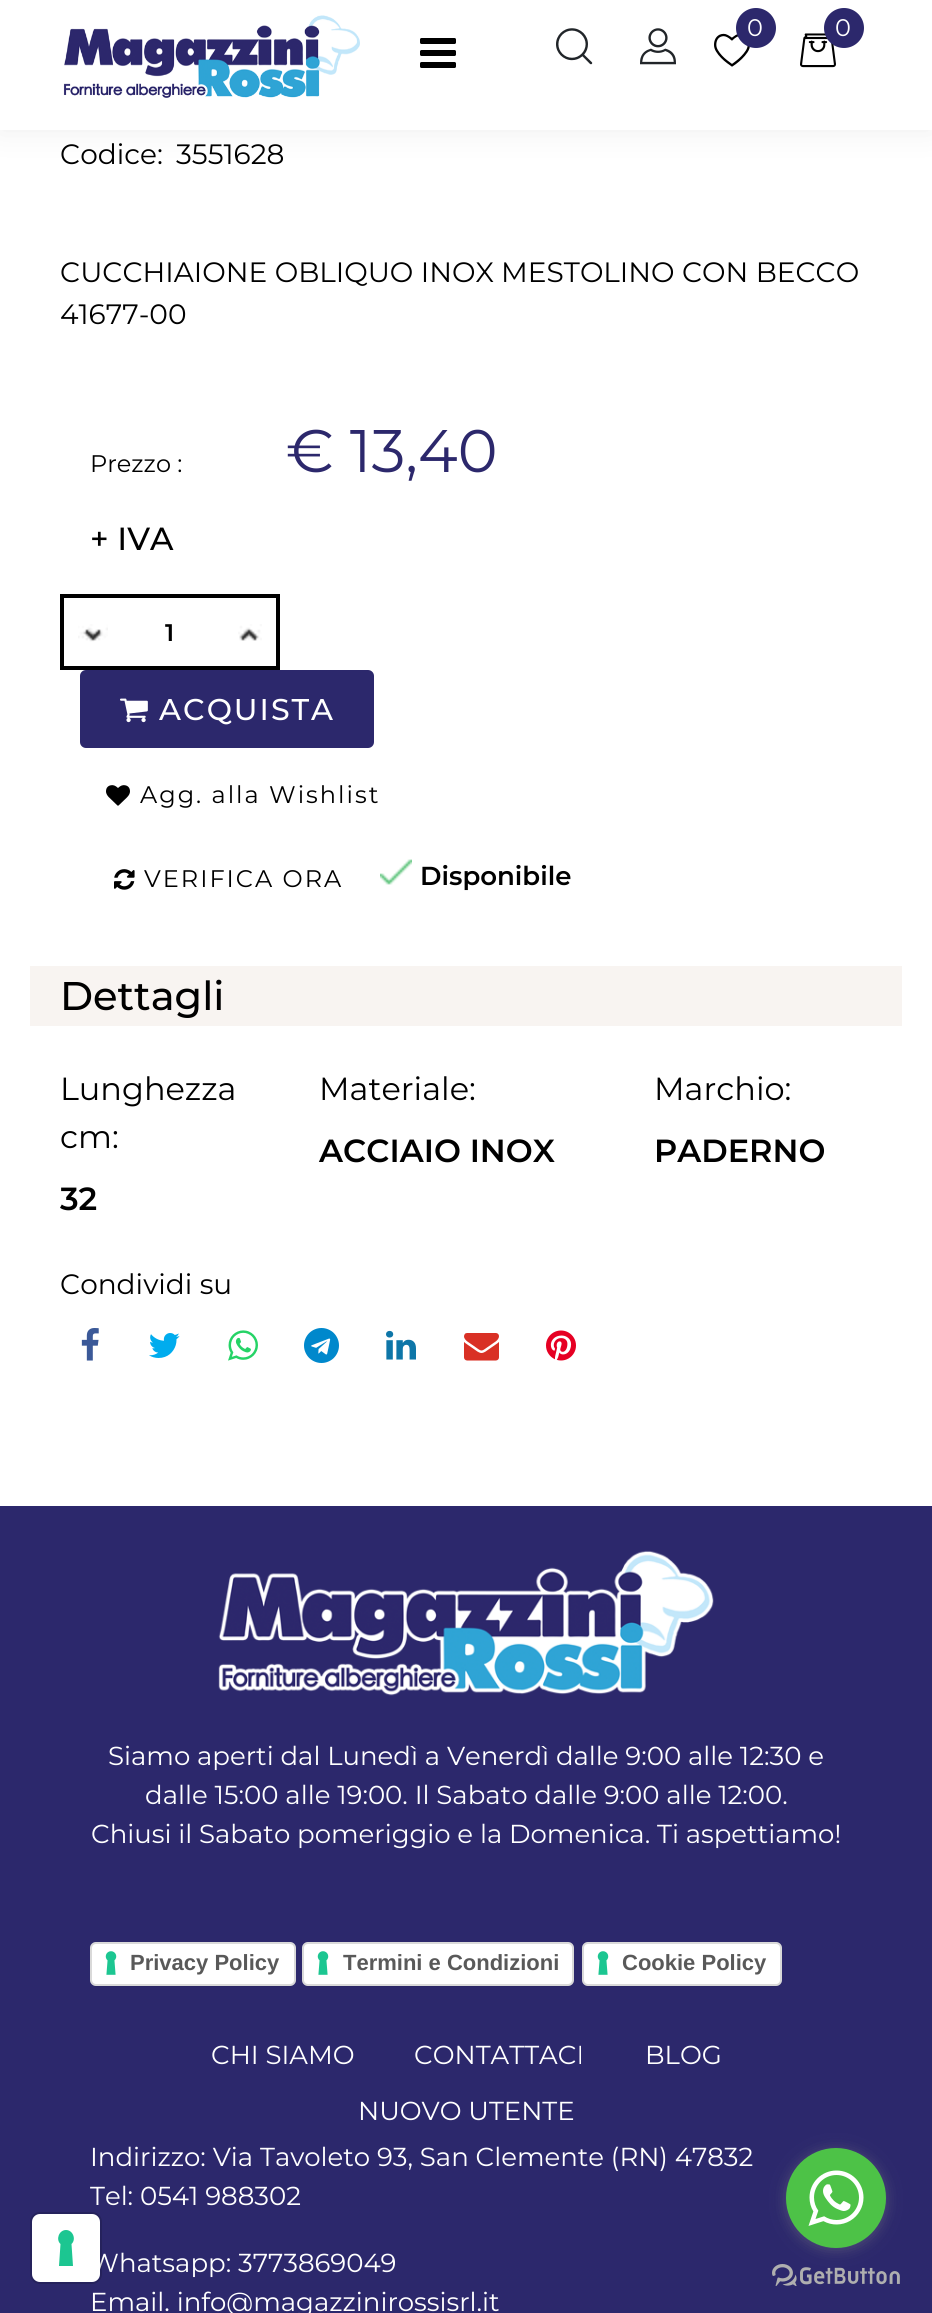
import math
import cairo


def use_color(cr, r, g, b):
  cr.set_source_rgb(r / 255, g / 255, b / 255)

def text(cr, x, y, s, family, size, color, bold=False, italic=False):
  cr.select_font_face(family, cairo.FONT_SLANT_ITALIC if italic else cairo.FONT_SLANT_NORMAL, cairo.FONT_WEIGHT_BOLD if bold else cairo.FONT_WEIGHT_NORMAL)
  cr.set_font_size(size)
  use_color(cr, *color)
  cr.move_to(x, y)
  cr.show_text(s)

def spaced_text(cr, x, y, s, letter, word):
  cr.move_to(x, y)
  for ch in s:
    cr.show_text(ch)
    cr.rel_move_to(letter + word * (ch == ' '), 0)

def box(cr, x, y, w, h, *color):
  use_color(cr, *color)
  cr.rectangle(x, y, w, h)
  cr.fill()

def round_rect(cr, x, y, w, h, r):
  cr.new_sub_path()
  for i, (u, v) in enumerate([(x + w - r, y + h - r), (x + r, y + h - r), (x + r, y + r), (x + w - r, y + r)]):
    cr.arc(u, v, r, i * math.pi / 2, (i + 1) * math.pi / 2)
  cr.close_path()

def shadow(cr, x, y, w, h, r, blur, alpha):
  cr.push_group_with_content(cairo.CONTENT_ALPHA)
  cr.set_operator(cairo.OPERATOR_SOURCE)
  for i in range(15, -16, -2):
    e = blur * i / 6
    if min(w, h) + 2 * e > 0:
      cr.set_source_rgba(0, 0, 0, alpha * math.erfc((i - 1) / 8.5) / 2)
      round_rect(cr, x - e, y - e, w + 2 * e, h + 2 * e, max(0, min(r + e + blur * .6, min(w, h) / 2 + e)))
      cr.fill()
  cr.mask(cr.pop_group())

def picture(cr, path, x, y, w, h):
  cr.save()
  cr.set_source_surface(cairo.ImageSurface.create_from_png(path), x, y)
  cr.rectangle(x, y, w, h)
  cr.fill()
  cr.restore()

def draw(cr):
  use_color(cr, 255, 255, 255)
  cr.paint()
  use_color(cr, 238, 238, 238)
  shadow(cr, 0, 0, 932, 130, 0, 15, 1)
  box(cr, 0, 0, 932, 130, 255, 255, 255)
  picture(cr, "img_01.png", 63, 15, 297, 83)
  picture(cr, "img_02.png", 556, 28, 37, 37)
  picture(cr, "img_03.png", 640, 28, 36, 37)
  picture(cr, "img_04.png", 714, 33, 36, 34)
  use_color(cr, 44, 40, 108)
  cr.arc(756, 28, 20, 0, 2 * math.pi)
  cr.fill()
  picture(cr, "img_05.png", 800, 33, 36, 35)
  cr.arc(844, 28, 20, 0, 2 * math.pi)
  cr.fill()
  picture(cr, "img_06.png", 420, 38, 36, 30)
  picture(cr, "img_07.png", 78, 624, 30, 18)
  box(cr, 60, 594, 220, 4, 0, 0, 0)
  box(cr, 60, 666, 160, 4, 0, 0, 0)
  box(cr, 60, 594, 4, 76, 0, 0, 0)
  picture(cr, "img_08.png", 238, 624, 24, 17)
  box(cr, 276, 594, 4, 76, 0, 0, 0)
  box(cr, 220, 666, 60, 4, 0, 0, 0)
  use_color(cr, 44, 40, 108)
  round_rect(cr, 80, 670, 294, 78, 6)
  cr.fill()
  picture(cr, "img_09.png", 120, 698, 28, 25)
  picture(cr, "img_10.png", 106, 785, 24, 21)
  picture(cr, "img_11.png", 114, 869, 21, 21)
  picture(cr, "img_12.png", 380, 859, 32, 26)
  box(cr, 30, 966, 872, 60, 248, 244, 241)
  picture(cr, "img_13.png", 81, 1328, 18, 33)
  picture(cr, "img_14.png", 149, 1333, 31, 25)
  picture(cr, "img_15.png", 228, 1330, 30, 31)
  picture(cr, "img_16.png", 304, 1328, 35, 35)
  picture(cr, "img_17.png", 386, 1330, 30, 30)
  picture(cr, "img_18.png", 464, 1333, 35, 28)
  picture(cr, "img_19.png", 546, 1330, 30, 31)
  box(cr, 0, 1506, 932, 807, 44, 40, 108)
  picture(cr, "img_20.png", 218, 1550, 496, 146)
  use_color(cr, 0, 0, 0)
  shadow(cr, 92, 1946, 202, 40, 4, 1, 0.15)
  use_color(cr, 255, 255, 255)
  round_rect(cr, 90, 1942, 206, 44, 6)
  cr.fill()
  picture(cr, "img_21.png", 105, 1951, 12, 24)
  round_rect(cr, 91, 1943, 204, 42, 5)
  cr.set_source_rgba(0, 0, 0, 0.15)
  cr.stroke()
  use_color(cr, 0, 0, 0)
  shadow(cr, 304, 1946, 268, 40, 4, 1, 0.15)
  use_color(cr, 255, 255, 255)
  round_rect(cr, 302, 1942, 272, 44, 6)
  cr.fill()
  picture(cr, "img_21.png", 317, 1951, 12, 24)
  round_rect(cr, 303, 1943, 270, 42, 5)
  cr.set_source_rgba(0, 0, 0, 0.15)
  cr.stroke()
  use_color(cr, 0, 0, 0)
  shadow(cr, 584, 1946, 196, 40, 4, 1, 0.15)
  use_color(cr, 255, 255, 255)
  round_rect(cr, 582, 1942, 200, 44, 6)
  cr.fill()
  picture(cr, "img_21.png", 597, 1951, 12, 24)
  round_rect(cr, 583, 1943, 198, 42, 5)
  cr.set_source_rgba(0, 0, 0, 0.15)
  cr.stroke()
  picture(cr, "img_23.png", 772, 2264, 128, 22)
  use_color(cr, 136, 136, 136)
  shadow(cr, 786, 2150, 100, 100, 50, 7, 0.4)
  use_color(cr, 77, 194, 71)
  cr.arc(836, 2198, 50, 0, 2 * math.pi)
  cr.fill()
  picture(cr, "img_22.png", 808, 2170, 56, 56)
  text(cr, 747, 36, "0", "Montserrat", 24, (255, 255, 255))
  text(cr, 835, 36, "0", "Montserrat", 24, (255, 255, 255))
  text(cr, 60, 164, "Codice:", "Montserrat", 28, (0, 0, 0))
  text(cr, 176, 164, "3551628", "Montserrat", 28, (0, 0, 0))
  text(cr, 60, 282, "CUCCHIAIONE OBLIQUO INOX MESTOLINO CON BECCO", "Montserrat", 28, (0, 0, 0))
  text(cr, 60, 324, "41677-00", "Montserrat", 28, (0, 0, 0))
  text(cr, 90, 472, "Prezzo :", "Montserrat", 24, (0, 0, 0))
  text(cr, 286, 472, "€ 13,40", "Montserrat", 60, (44, 40, 108))
  text(cr, 90, 550, "+ IVA", "Montserrat Medium", 32, (0, 0, 0))
  text(cr, 165, 641, "1", "Montserrat SemiBold", 24, (0, 0, 0))
  cr.select_font_face("Montserrat Medium")
  cr.set_font_size(30)
  use_color(cr, 255, 255, 255)
  spaced_text(cr, 159, 720, "ACQUISTA", 2, 0)
  cr.select_font_face("Montserrat")
  cr.set_font_size(24)
  use_color(cr, 0, 0, 0)
  spaced_text(cr, 140, 803, "Agg. alla Wishlist", 2, 0)
  spaced_text(cr, 144, 887, "VERIFICA ORA", 2, 0)
  text(cr, 420, 885, "Disponibile", "Montserrat SemiBold", 26, (0, 0, 0))
  text(cr, 60, 1010, "Dettagli", "Montserrat Medium", 40, (0, 0, 0))
  text(cr, 60, 1100, "Lunghezza", "Montserrat", 32, (0, 0, 0))
  text(cr, 60, 1148, "cm:", "Montserrat", 32, (0, 0, 0))
  text(cr, 60, 1210, "32", "Montserrat SemiBold", 32, (0, 0, 0))
  text(cr, 319, 1100, "Materiale:", "Montserrat", 32, (0, 0, 0))
  text(cr, 319, 1162, "ACCIAIO INOX", "Montserrat SemiBold", 32, (0, 0, 0))
  text(cr, 654, 1100, "Marchio:", "Montserrat", 32, (0, 0, 0))
  text(cr, 654, 1162, "PADERNO", "Montserrat SemiBold", 32, (0, 0, 0))
  text(cr, 60, 1294, "Condividi su", "Montserrat", 28, (0, 0, 0))
  text(cr, 108, 1765, "Siamo aperti dal Lunedì a Venerdì dalle 9:00 alle 12:30 e", "Montserrat", 26, (255, 255, 255))
  text(cr, 145, 1804, "dalle 15:00 alle 19:00. Il Sabato dalle 9:00 alle 12:00.", "Montserrat", 26, (255, 255, 255))
  text(cr, 91, 1843, "Chiusi il Sabato pomeriggio e la Domenica. Ti aspettiamo!", "Montserrat", 26, (255, 255, 255))
  text(cr, 130, 1970, "Privacy Policy", "Liberation Sans", 22, (89, 89, 89), bold=True)
  text(cr, 343, 1970, "Termini e Condizioni", "Liberation Sans", 22, (89, 89, 89), bold=True)
  text(cr, 622, 1970, "Cookie Policy", "Liberation Sans", 22, (89, 89, 89), bold=True)
  text(cr, 211, 2064, "CHI SIAMO", "Montserrat", 26, (255, 255, 255))
  text(cr, 414, 2064, "CONTATTACI", "Montserrat", 26, (255, 255, 255))
  text(cr, 645, 2064, "BLOG", "Montserrat", 26, (255, 255, 255))
  text(cr, 358, 2120, "NUOVO UTENTE", "Montserrat", 26, (255, 255, 255))
  text(cr, 90, 2166, "Indirizzo: Via Tavoleto 93, San Clemente (RN) 47832", "Montserrat", 26, (255, 255, 255))
  text(cr, 90, 2205, "Tel: 0541 988302", "Montserrat", 26, (255, 255, 255))
  text(cr, 90, 2272, "Whatsapp: 3773869049", "Montserrat", 26, (255, 255, 255))
  text(cr, 90, 2311, "Email. info@magazzinirossisrl.it", "Montserrat", 26, (255, 255, 255))
  round_rect(cr, 31, 2213, 70, 70, 9)
  cr.set_source_rgba(0, 0, 0, 0.15)
  cr.stroke()
  use_color(cr, 255, 255, 255)
  round_rect(cr, 32, 2214, 68, 68, 8)
  cr.fill()
  use_color(cr, 28, 198, 145)
  cr.set_fill_rule(cairo.FILL_RULE_EVEN_ODD)
  cr.new_path()
  cr.move_to(66, 2230)
  cr.curve_to(73, 2230, 76.5, 2239.5, 71.5, 2244)
  cr.line_to(73, 2266)
  cr.line_to(59, 2266)
  cr.line_to(60.5, 2244)
  cr.curve_to(55.5, 2239.5, 59, 2230, 66, 2230)
  cr.close_path()
  cr.fill()


surface = cairo.ImageSurface(cairo.FORMAT_RGB24, 932, 2313)
cr = cairo.Context(surface)
options = cairo.FontOptions()
options.set_hint_metrics(cairo.HINT_METRICS_OFF)
options.set_hint_style(cairo.HINT_STYLE_NONE)
cr.set_font_options(options)
cr.set_miter_limit(4)
draw(cr)
surface.write_to_png("out.png")
